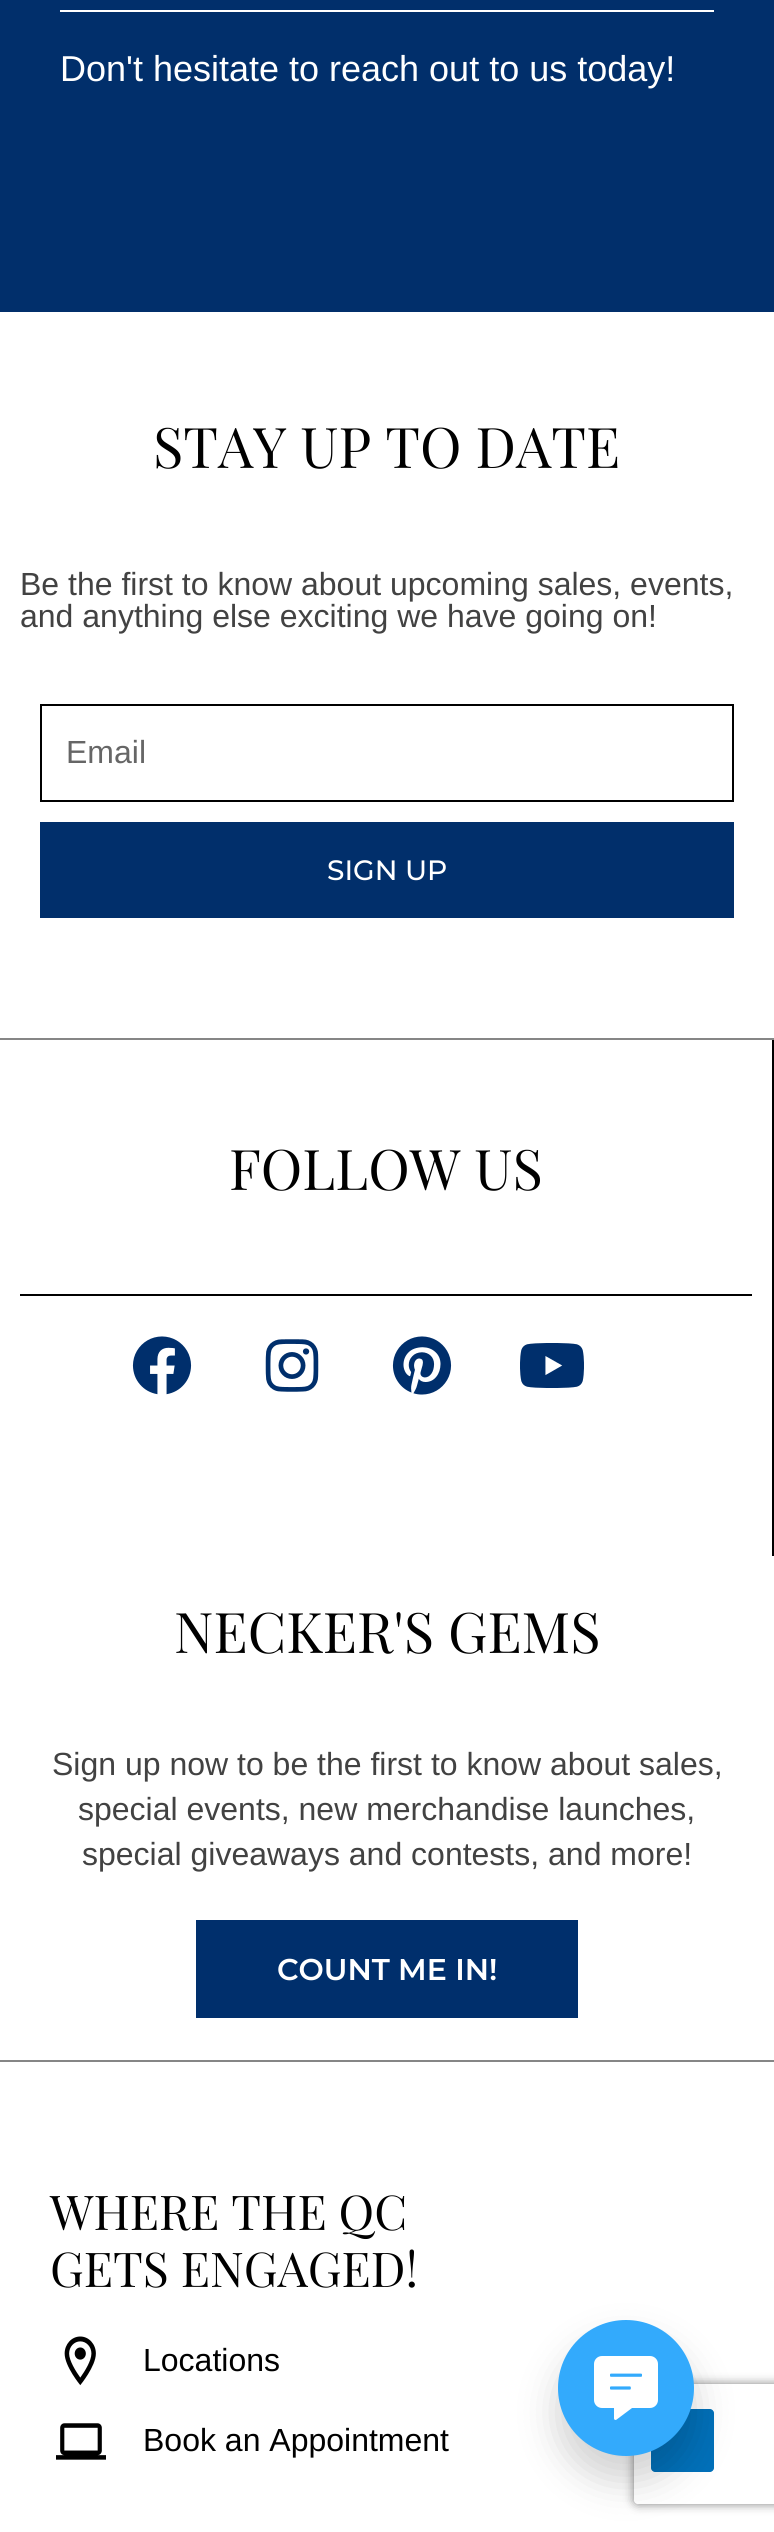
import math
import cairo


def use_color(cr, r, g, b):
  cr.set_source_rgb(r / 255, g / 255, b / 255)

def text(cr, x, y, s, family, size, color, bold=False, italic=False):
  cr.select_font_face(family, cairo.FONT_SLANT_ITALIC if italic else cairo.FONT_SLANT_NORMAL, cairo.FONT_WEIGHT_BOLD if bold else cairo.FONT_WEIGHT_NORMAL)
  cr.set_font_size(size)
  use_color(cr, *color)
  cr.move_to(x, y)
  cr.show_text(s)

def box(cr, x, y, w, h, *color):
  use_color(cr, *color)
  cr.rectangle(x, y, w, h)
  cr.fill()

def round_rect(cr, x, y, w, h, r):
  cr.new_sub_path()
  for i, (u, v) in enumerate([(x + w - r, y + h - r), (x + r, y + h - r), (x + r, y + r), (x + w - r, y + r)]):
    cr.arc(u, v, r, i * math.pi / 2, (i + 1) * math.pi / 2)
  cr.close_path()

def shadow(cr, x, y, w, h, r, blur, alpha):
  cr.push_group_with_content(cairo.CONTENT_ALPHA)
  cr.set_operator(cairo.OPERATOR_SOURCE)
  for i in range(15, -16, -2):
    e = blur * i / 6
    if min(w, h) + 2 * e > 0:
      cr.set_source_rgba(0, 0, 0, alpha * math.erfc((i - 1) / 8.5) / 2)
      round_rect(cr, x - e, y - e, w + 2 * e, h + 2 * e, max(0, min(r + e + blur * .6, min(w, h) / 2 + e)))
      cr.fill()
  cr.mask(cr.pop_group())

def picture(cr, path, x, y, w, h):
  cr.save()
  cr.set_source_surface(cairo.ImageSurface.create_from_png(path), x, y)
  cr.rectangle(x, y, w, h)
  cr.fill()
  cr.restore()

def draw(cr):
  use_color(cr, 255, 255, 255)
  cr.paint()
  box(cr, 0, 0, 774, 312, 1, 47, 107)
  box(cr, 60, 10, 654, 2, 255, 255, 255)
  cr.rectangle(41, 705, 692, 96)
  use_color(cr, 0, 0, 0)
  cr.stroke()
  box(cr, 40, 822, 694, 96, 1, 47, 107)
  cr.save()
  cr.set_fill_rule(cairo.FILL_RULE_EVEN_ODD)
  cr.new_path()
  cr.move_to(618, 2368)
  cr.line_to(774, 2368)
  cr.line_to(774, 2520)
  cr.line_to(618, 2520)
  cr.close_path()
  cr.move_to(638, 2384)
  cr.line_to(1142, 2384)
  cr.curve_to(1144, 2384, 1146, 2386, 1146, 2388)
  cr.line_to(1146, 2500)
  cr.curve_to(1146, 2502, 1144, 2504, 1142, 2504)
  cr.line_to(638, 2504)
  cr.curve_to(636, 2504, 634, 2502, 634, 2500)
  cr.line_to(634, 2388)
  cr.curve_to(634, 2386, 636, 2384, 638, 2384)
  cr.close_path()
  cr.clip()
  use_color(cr, 128, 128, 128)
  shadow(cr, 634, 2384, 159, 120, 4, 5, 1)
  cr.restore()
  box(cr, 0, 1038, 774, 2, 134, 134, 134)
  box(cr, 0, 2060, 774, 2, 134, 134, 134)
  box(cr, 772, 1040, 2, 516, 0, 0, 0)
  box(cr, 20, 1294, 732, 2, 0, 0, 0)
  picture(cr, "img_01.png", 132, 1336, 60, 59)
  picture(cr, "img_02.png", 265, 1339, 54, 53)
  picture(cr, "img_03.png", 392, 1336, 60, 59)
  picture(cr, "img_04.png", 520, 1343, 64, 45)
  box(cr, 196, 1920, 382, 98, 0, 47, 108)
  picture(cr, "img_05.png", 64, 2336, 32, 50)
  picture(cr, "img_06.png", 56, 2423, 50, 37)
  use_color(cr, 1, 112, 185)
  cr.new_path()
  cr.move_to(710, 2472)
  cr.line_to(655, 2472)
  cr.curve_to(653, 2472, 651, 2470, 651, 2468)
  cr.line_to(651, 2413)
  cr.curve_to(651, 2411, 653, 2409, 655, 2409)
  cr.line_to(710, 2409)
  cr.curve_to(712, 2409, 714, 2411, 714, 2413)
  cr.line_to(714, 2468)
  cr.curve_to(714, 2470, 712, 2472, 710, 2472)
  cr.close_path()
  cr.fill()
  use_color(cr, 0, 0, 0)
  shadow(cr, 558, 2344, 136, 136, 68, 19, 0.18)
  use_color(cr, 51, 170, 252)
  cr.arc(626, 2388, 68, 0, 2 * math.pi)
  cr.fill()
  picture(cr, "img_07.png", 594, 2356, 64, 64)
  text(cr, 60, 81, "Don't hesitate to reach out to us today!", "Liberation Sans", 36, (255, 255, 255))
  text(cr, 153, 468, "STAY UP TO DATE", "Playfair Display", 56, (0, 0, 0))
  text(cr, 20, 595, "Be the first to know about upcoming sales, events,", "Liberation Sans", 32, (66, 66, 66))
  text(cr, 20, 627, "and anything else exciting we have going on!", "Liberation Sans", 32, (66, 66, 66))
  text(cr, 66, 763, "Email", "Liberation Sans", 32, (102, 102, 102))
  text(cr, 327, 880, "SIGN UP", "Montserrat Medium", 28, (255, 255, 255))
  text(cr, 229, 1190, "FOLLOW US", "Playfair Display", 56, (0, 0, 0))
  text(cr, 174, 1653, "NECKER'S GEMS", "Playfair Display", 56, (0, 0, 0))
  text(cr, 52, 1775, "Sign up now to be the first to know about sales,", "Liberation Sans", 32, (66, 66, 66))
  text(cr, 78, 1820, "special events, new merchandise launches,", "Liberation Sans", 32, (66, 66, 66))
  text(cr, 82, 1865, "special giveaways and contests, and more!", "Liberation Sans", 32, (66, 66, 66))
  text(cr, 277, 1980, "COUNT ME IN!", "Montserrat SemiBold", 30, (255, 255, 255))
  text(cr, 50, 2230, "WHERE THE QC", "Playfair Display", 48, (0, 0, 0))
  text(cr, 50, 2287, "GETS ENGAGED!", "Playfair Display", 48, (0, 0, 0))
  text(cr, 143, 2371, "Locations", "Liberation Sans", 32, (0, 0, 0))
  text(cr, 143, 2451, "Book an Appointment", "Liberation Sans", 32, (0, 0, 0))


surface = cairo.ImageSurface(cairo.FORMAT_RGB24, 774, 2532)
cr = cairo.Context(surface)
options = cairo.FontOptions()
options.set_hint_metrics(cairo.HINT_METRICS_OFF)
options.set_hint_style(cairo.HINT_STYLE_NONE)
cr.set_font_options(options)
cr.set_miter_limit(4)
draw(cr)
surface.write_to_png("out.png")
